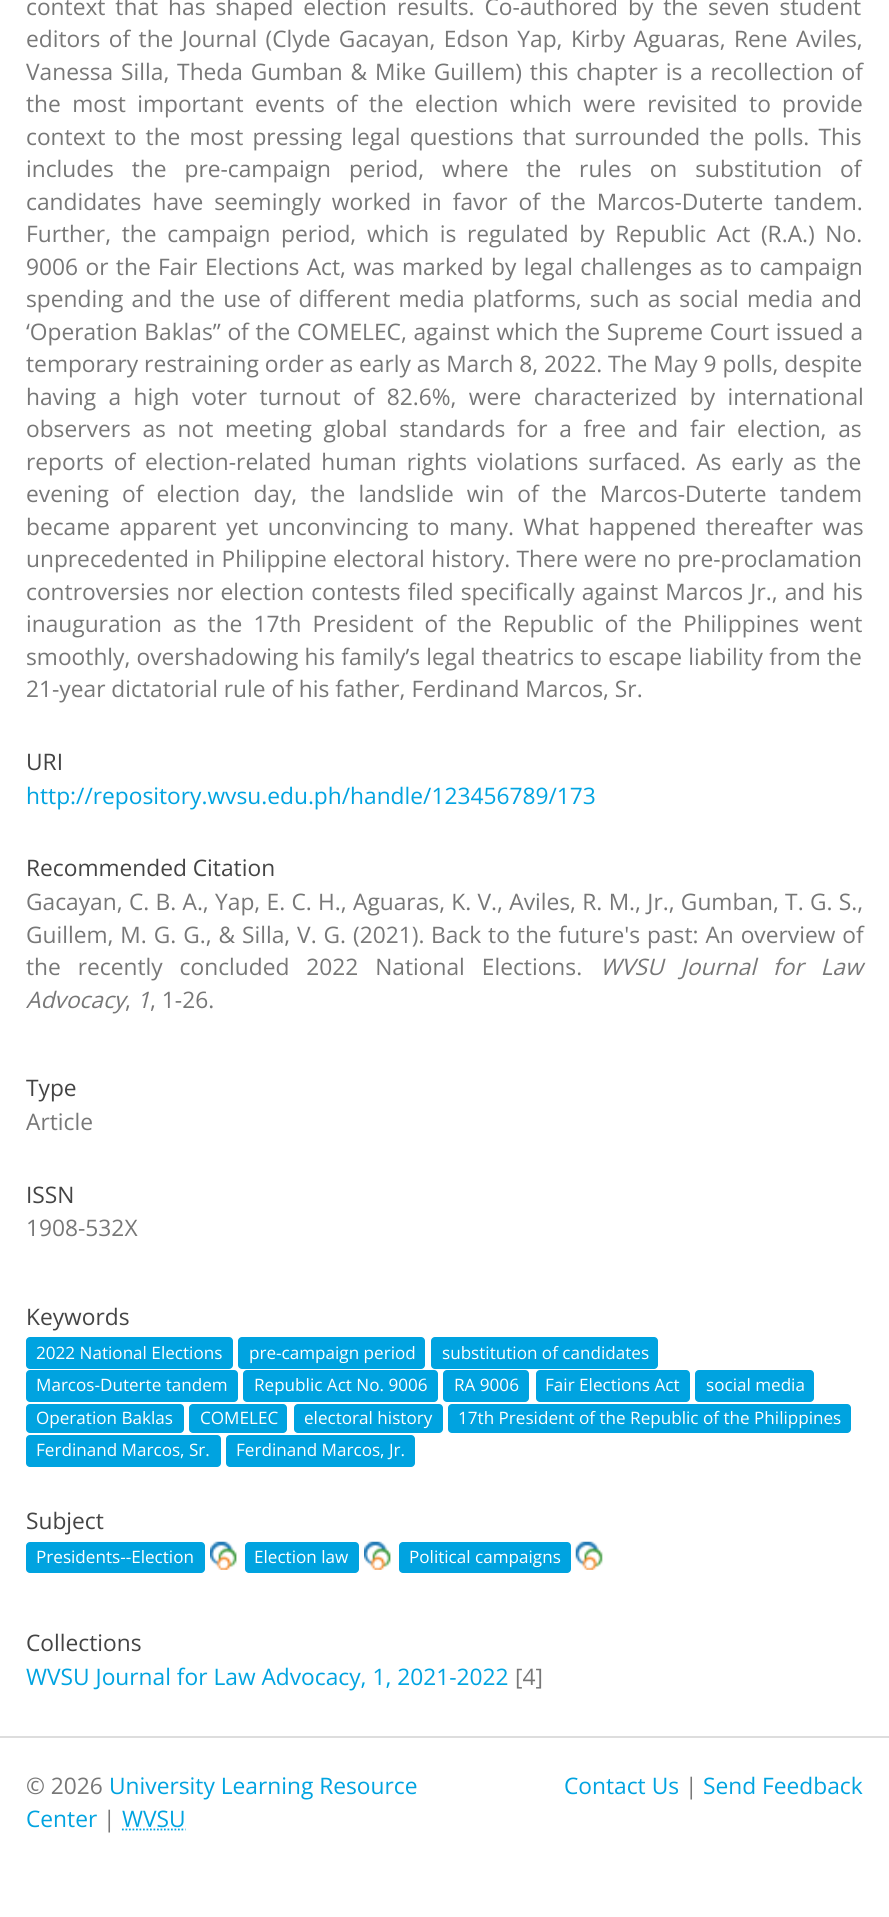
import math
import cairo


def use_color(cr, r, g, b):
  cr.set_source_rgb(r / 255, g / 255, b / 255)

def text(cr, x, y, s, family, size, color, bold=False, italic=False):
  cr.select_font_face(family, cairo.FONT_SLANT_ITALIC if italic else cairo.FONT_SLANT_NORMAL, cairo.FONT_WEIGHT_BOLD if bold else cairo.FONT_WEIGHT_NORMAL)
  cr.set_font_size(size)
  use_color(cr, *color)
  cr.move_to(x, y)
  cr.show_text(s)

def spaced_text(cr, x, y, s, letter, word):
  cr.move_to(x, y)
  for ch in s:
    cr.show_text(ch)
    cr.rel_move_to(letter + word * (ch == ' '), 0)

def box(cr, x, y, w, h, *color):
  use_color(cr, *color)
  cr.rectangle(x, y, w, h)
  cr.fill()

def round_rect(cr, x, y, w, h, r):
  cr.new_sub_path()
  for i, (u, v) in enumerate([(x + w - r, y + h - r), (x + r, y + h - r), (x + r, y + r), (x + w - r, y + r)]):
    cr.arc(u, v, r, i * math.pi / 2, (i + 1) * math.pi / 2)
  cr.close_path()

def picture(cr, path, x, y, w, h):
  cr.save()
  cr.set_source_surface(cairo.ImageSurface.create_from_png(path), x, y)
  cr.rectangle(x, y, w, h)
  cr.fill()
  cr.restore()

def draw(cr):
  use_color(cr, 255, 255, 255)
  cr.paint()
  use_color(cr, 0, 163, 224)
  round_rect(cr, 26, 1337, 207, 32, 4)
  cr.fill()
  round_rect(cr, 238, 1337, 187, 32, 4)
  cr.fill()
  round_rect(cr, 431, 1337, 227, 32, 4)
  cr.fill()
  round_rect(cr, 26, 1370, 212, 32, 4)
  cr.fill()
  round_rect(cr, 243, 1370, 195, 32, 4)
  cr.fill()
  round_rect(cr, 443, 1370, 86, 32, 4)
  cr.fill()
  round_rect(cr, 536, 1370, 154, 32, 4)
  cr.fill()
  round_rect(cr, 695, 1370, 119, 32, 4)
  cr.fill()
  round_rect(cr, 26, 1404, 158, 29, 4)
  cr.fill()
  round_rect(cr, 189, 1404, 98, 29, 4)
  cr.fill()
  round_rect(cr, 294, 1404, 149, 29, 4)
  cr.fill()
  round_rect(cr, 448, 1404, 403, 29, 4)
  cr.fill()
  round_rect(cr, 26, 1435, 195, 32, 4)
  cr.fill()
  round_rect(cr, 226, 1435, 189, 32, 4)
  cr.fill()
  round_rect(cr, 26, 1542, 179, 31, 4)
  cr.fill()
  picture(cr, "img_01.png", 210, 1541, 27, 29)
  round_rect(cr, 245, 1542, 114, 31, 4)
  cr.fill()
  picture(cr, "img_02.png", 364, 1541, 27, 29)
  round_rect(cr, 399, 1542, 172, 31, 4)
  cr.fill()
  picture(cr, "img_03.png", 575, 1541, 28, 29)
  box(cr, 0, 1736, 889, 2, 221, 221, 221)
  cr.new_path()
  cr.move_to(122, 1829.5)
  cr.line_to(185.5, 1829.5)
  use_color(cr, 0, 163, 224)
  cr.set_line_width(1.8)
  cr.set_dash([1.75, 1.75])
  cr.stroke()
  cr.select_font_face("Open Sans")
  cr.set_font_size(22.75)
  use_color(cr, 119, 119, 119)
  spaced_text(cr, 26, 15, "context that has shaped election results. Co-authored by the seven student", 0, 4)
  spaced_text(cr, 26, 47, "editors of the Journal (Clyde Gacayan, Edson Yap, Kirby Aguaras, Rene Aviles,", 0, 2.5)
  spaced_text(cr, 26, 80, "Vanessa Silla, Theda Gumban & Mike Guillem) this chapter is a recollection of", 0, 1.9)
  spaced_text(cr, 26, 112, "the most important events of the election which were revisited to provide", 0, 5.4)
  spaced_text(cr, 26, 145, "context to the most pressing legal questions that surrounded the polls. This", 0, 3.25)
  spaced_text(cr, 26, 177, "includes the pre-campaign period, where the rules on substitution of", 0, 12)
  spaced_text(cr, 26, 210, "candidates have seemingly worked in favor of the Marcos-Duterte tandem.", 0, 5.1)
  spaced_text(cr, 26, 242, "Further, the campaign period, which is regulated by Republic Act (R.A.) No.", 0, 4.75)
  spaced_text(cr, 26, 275, "9006 or the Fair Elections Act, was marked by legal challenges as to campaign", 0, 1.5)
  spaced_text(cr, 26, 307, "spending and the use of different media platforms, such as social media and", 0, 2.25)
  spaced_text(cr, 26, 340, "‘Operation Baklas” of the COMELEC, against which the Supreme Court issued a", 0, 0.75)
  text(cr, 26, 372, "temporary restraining order as early as March 8, 2022. The May 9 polls, despite", "Open Sans", 22.75, (119, 119, 119))
  spaced_text(cr, 26, 405, "having a high voter turnout of 82.6%, were characterized by international", 0, 6.5)
  spaced_text(cr, 26, 437, "observers as not meeting global standards for a free and fair election, as", 0, 5.75)
  spaced_text(cr, 26, 470, "reports of election-related human rights violations surfaced. As early as the", 0, 4)
  spaced_text(cr, 26, 502, "evening of election day, the landslide win of the Marcos-Duterte tandem", 0, 7.25)
  spaced_text(cr, 26, 535, "became apparent yet unconvincing to many. What happened thereafter was", 0, 3.5)
  spaced_text(cr, 26, 567, "unprecedented in Philippine electoral history. There were no pre-proclamation", 0, 0.5)
  spaced_text(cr, 26, 600, "controversies nor election contests filed specifically against Marcos Jr., and his", 0, 1.25)
  spaced_text(cr, 26, 632, "inauguration as the 17th President of the Republic of the Philippines went", 0, 5.1)
  spaced_text(cr, 26, 665, "smoothly, overshadowing his family’s legal theatrics to escape liability from the", 0, 0.25)
  text(cr, 26, 697, "21-year dictatorial rule of his father, Ferdinand Marcos, Sr.", "Open Sans", 22.75, (119, 119, 119))
  text(cr, 26, 770, "URI", "Open Sans", 22.75, (68, 68, 68))
  text(cr, 26, 804, "http://repository.wvsu.edu.ph/handle/123456789/173", "Open Sans", 22.75, (0, 163, 224))
  text(cr, 26, 876, "Recommended Citation", "Open Sans", 22.75, (68, 68, 68))
  use_color(cr, 119, 119, 119)
  spaced_text(cr, 26, 910, "Gacayan, C. B. A., Yap, E. C. H., Aguaras, K. V., Aviles, R. M., Jr., Gumban, T. G. S.,", 0, 0.4)
  spaced_text(cr, 26, 943, "Guillem, M. G. G., & Silla, V. G.", 0, 1)
  text(cr, 353, 943, "(2021).", "Open Sans", 22.75, (119, 119, 119))
  spaced_text(cr, 431, 943, "Back to the future's past: An overview of", 0, 1)
  spaced_text(cr, 26, 975, "the recently concluded 2022 National Elections.", 0, 11)
  cr.select_font_face("Open Sans", cairo.FONT_SLANT_ITALIC)
  spaced_text(cr, 600, 975, "WVSU Journal for Law", 0, 11)
  text(cr, 26, 1008, "Advocacy", "Open Sans", 22.75, (119, 119, 119), italic=True)
  text(cr, 137, 1008, "1", "Open Sans", 22.75, (119, 119, 119), italic=True)
  text(cr, 150, 1008, ", 1-26.", "Open Sans", 22.75, (119, 119, 119))
  text(cr, 125, 1008, ",", "Open Sans", 22.75, (119, 119, 119))
  text(cr, 26, 1096, "Type", "Open Sans", 22.75, (68, 68, 68))
  text(cr, 26, 1130, "Article", "Open Sans", 22.75, (119, 119, 119))
  text(cr, 26, 1203, "ISSN", "Open Sans", 22.75, (68, 68, 68))
  text(cr, 26, 1236, "1908-532X", "Open Sans", 22.75, (119, 119, 119))
  text(cr, 26, 1325, "Keywords", "Open Sans", 22.75, (68, 68, 68))
  text(cr, 36, 1359, "2022 National Elections", "Open Sans", 17.1, (255, 255, 255))
  text(cr, 249, 1359, "pre-campaign period", "Open Sans", 17.1, (255, 255, 255))
  text(cr, 442, 1359, "substitution of candidates", "Open Sans", 17.1, (255, 255, 255))
  text(cr, 36, 1391, "Marcos-Duterte tandem", "Open Sans", 17.1, (255, 255, 255))
  text(cr, 254, 1391, "Republic Act No. 9006", "Open Sans", 17.1, (255, 255, 255))
  text(cr, 454, 1391, "RA 9006", "Open Sans", 17.1, (255, 255, 255))
  text(cr, 545, 1391, "Fair Elections Act", "Open Sans", 17.1, (255, 255, 255))
  text(cr, 706, 1391, "social media", "Open Sans", 17.1, (255, 255, 255))
  text(cr, 36, 1424, "Operation Baklas", "Open Sans", 17.1, (255, 255, 255))
  text(cr, 200, 1424, "COMELEC", "Open Sans", 17.1, (255, 255, 255))
  text(cr, 304, 1424, "electoral history", "Open Sans", 17.1, (255, 255, 255))
  text(cr, 458, 1424, "17th President of the Republic of the Philippines", "Open Sans", 17.1, (255, 255, 255))
  text(cr, 36, 1456, "Ferdinand Marcos, Sr.", "Open Sans", 17.1, (255, 255, 255))
  text(cr, 236, 1456, "Ferdinand Marcos, Jr.", "Open Sans", 17.1, (255, 255, 255))
  text(cr, 26, 1529, "Subject", "Open Sans", 22.75, (68, 68, 68))
  text(cr, 36, 1563, "Presidents--Election", "Open Sans", 17.1, (255, 255, 255))
  text(cr, 254, 1563, "Election law", "Open Sans", 17.1, (255, 255, 255))
  text(cr, 409, 1563, "Political campaigns", "Open Sans", 17.1, (255, 255, 255))
  text(cr, 26, 1651, "Collections", "Open Sans", 22.75, (68, 68, 68))
  text(cr, 26, 1685, "WVSU Journal for Law Advocacy, 1, 2021-2022", "Open Sans", 22.75, (0, 163, 224))
  text(cr, 515, 1685, "[4]", "Open Sans", 22.75, (119, 119, 119))
  text(cr, 26, 1794, "© 2026", "Open Sans", 22.75, (119, 119, 119))
  text(cr, 109, 1794, "University Learning Resource", "Open Sans", 22.75, (0, 163, 224))
  text(cr, 26, 1827, "Center", "Open Sans", 22.75, (0, 163, 224))
  text(cr, 103, 1827, "|", "Open Sans", 22.75, (119, 119, 119))
  text(cr, 122, 1827, "WVSU", "Open Sans", 22.75, (0, 163, 224))
  text(cr, 564, 1794, "Contact Us", "Open Sans", 22.75, (0, 163, 224))
  text(cr, 685, 1794, "|", "Open Sans", 22.75, (119, 119, 119))
  text(cr, 703, 1794, "Send Feedback", "Open Sans", 22.75, (0, 163, 224))


surface = cairo.ImageSurface(cairo.FORMAT_RGB24, 889, 1917)
cr = cairo.Context(surface)
options = cairo.FontOptions()
options.set_hint_metrics(cairo.HINT_METRICS_OFF)
options.set_hint_style(cairo.HINT_STYLE_NONE)
cr.set_font_options(options)
cr.set_miter_limit(4)
draw(cr)
surface.write_to_png("out.png")
